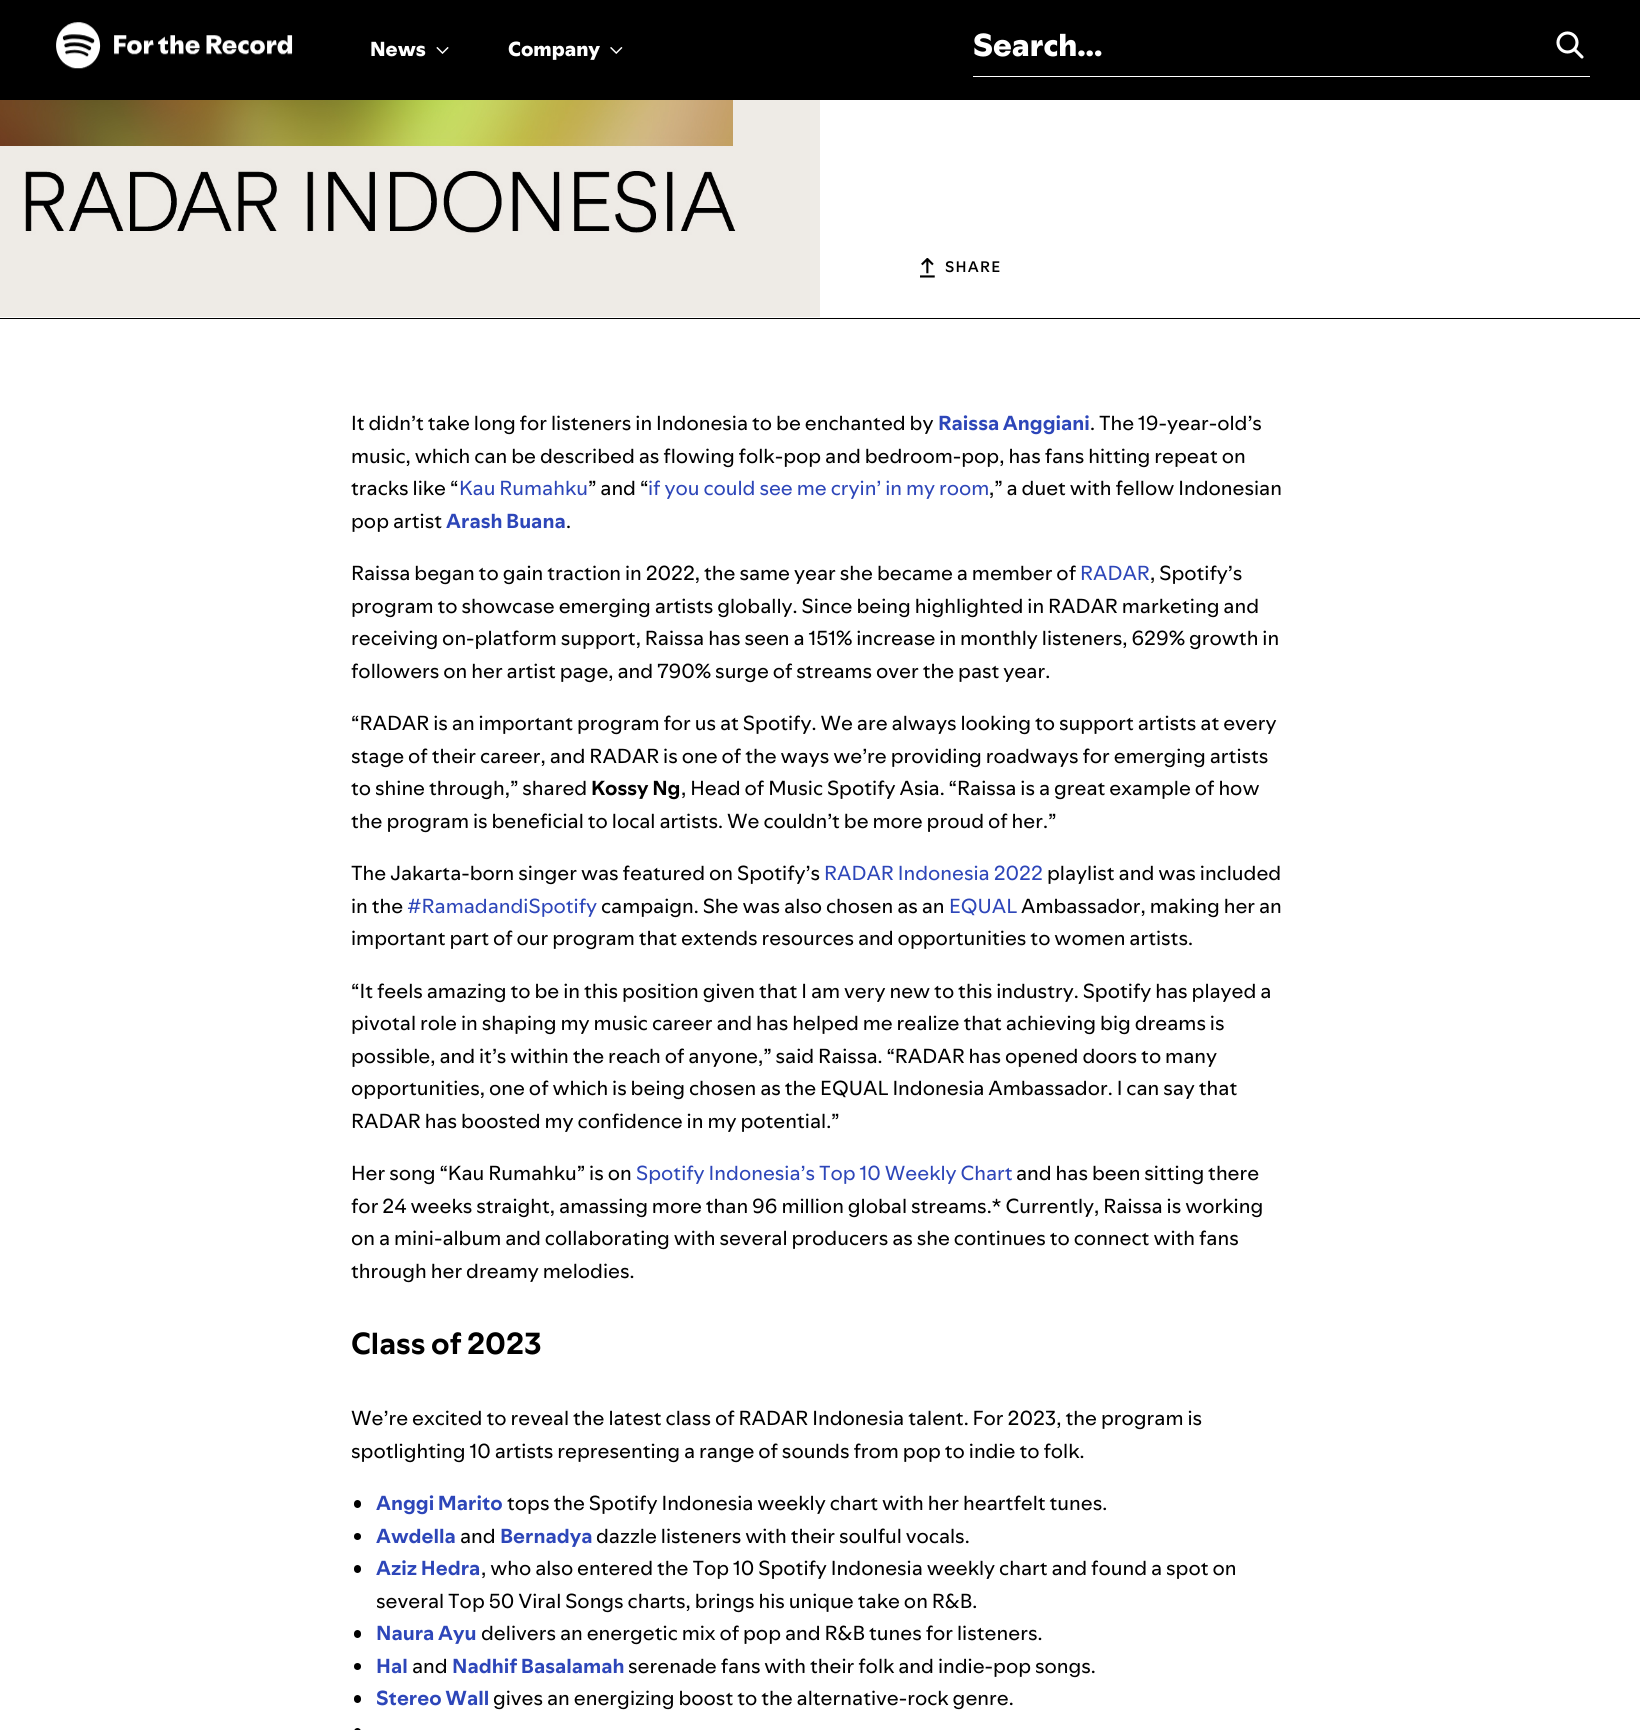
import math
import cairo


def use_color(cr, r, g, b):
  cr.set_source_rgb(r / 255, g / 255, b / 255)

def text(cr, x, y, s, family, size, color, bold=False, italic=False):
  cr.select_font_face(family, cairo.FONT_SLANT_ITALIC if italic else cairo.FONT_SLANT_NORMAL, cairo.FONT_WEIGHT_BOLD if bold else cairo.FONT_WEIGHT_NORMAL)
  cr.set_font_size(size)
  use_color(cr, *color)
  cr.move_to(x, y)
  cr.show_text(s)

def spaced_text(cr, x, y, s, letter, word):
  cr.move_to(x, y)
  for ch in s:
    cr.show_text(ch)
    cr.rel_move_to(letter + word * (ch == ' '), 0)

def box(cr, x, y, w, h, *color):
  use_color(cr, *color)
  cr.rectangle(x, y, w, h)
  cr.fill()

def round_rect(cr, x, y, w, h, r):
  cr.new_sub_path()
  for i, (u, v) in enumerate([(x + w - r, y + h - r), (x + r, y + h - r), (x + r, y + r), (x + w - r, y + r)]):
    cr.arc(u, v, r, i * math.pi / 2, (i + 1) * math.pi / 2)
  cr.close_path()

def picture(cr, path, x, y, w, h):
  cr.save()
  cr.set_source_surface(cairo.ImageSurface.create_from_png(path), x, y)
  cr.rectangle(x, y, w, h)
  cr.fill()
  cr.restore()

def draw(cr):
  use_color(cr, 255, 255, 255)
  cr.paint()
  box(cr, 0, 0, 1640, 100, 0, 0, 0)
  picture(cr, "img_01.png", 56, 22, 237, 47)
  picture(cr, "img_02.png", 436, 47, 13, 7)
  picture(cr, "img_03.png", 610, 47, 13, 7)
  box(cr, 973, 76, 617, 1, 255, 255, 255)
  cr.arc(1567.5, 42.5, 9.5, 0, 2 * math.pi)
  cr.set_line_width(3.1)
  cr.stroke()
  cr.new_path()
  cr.move_to(1582, 57)
  cr.line_to(1574.5, 49.5)
  cr.set_line_cap(cairo.LINE_CAP_ROUND)
  cr.set_line_join(cairo.LINE_JOIN_ROUND)
  cr.stroke()
  box(cr, 0, 318, 1640, 1, 0, 0, 0)
  picture(cr, "img_04.png", 0, 100, 820, 217)
  picture(cr, "img_05.png", 920, 258, 15, 20)
  round_rect(cr, 354, 1500, 7, 8, 3.5)
  cr.fill()
  cr.arc(357.5, 1536.5, 3.5, 0, 2 * math.pi)
  cr.fill()
  round_rect(cr, 354, 1565, 7, 8, 3.5)
  cr.fill()
  round_rect(cr, 354, 1630, 7, 8, 3.5)
  cr.fill()
  cr.arc(357.5, 1666.5, 3.5, 0, 2 * math.pi)
  cr.fill()
  round_rect(cr, 354, 1695, 7, 8, 3.5)
  cr.fill()
  round_rect(cr, 354, 1728, 7, 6, 3.5)
  cr.fill()
  text(cr, 370, 56, "News", "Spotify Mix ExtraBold", 20, (255, 255, 255))
  text(cr, 508, 56, "Company", "Spotify Mix ExtraBold", 20, (255, 255, 255))
  text(cr, 973, 56, "Search...", "Spotify Mix ExtraBold", 31.25, (255, 255, 255))
  cr.select_font_face("Spotify Mix Medium")
  cr.set_font_size(15)
  use_color(cr, 0, 0, 0)
  spaced_text(cr, 945, 272, "SHARE", 1.25, 0)
  text(cr, 351, 430, "It didn’t take long for listeners in Indonesia to be enchanted by", "Spotify Mix", 20, (0, 0, 0))
  text(cr, 938, 430, "Raissa Anggiani", "Spotify Mix", 20, (45, 70, 185), bold=True)
  text(cr, 1090, 430, ". The 19-year-old’s", "Spotify Mix", 20, (0, 0, 0))
  text(cr, 351, 463, "music, which can be described as flowing folk-pop and bedroom-pop, has fans hitting repeat on", "Spotify Mix", 20, (0, 0, 0))
  text(cr, 351, 495, "tracks like “", "Spotify Mix", 20, (0, 0, 0))
  text(cr, 459, 495, "Kau Rumahku", "Spotify Mix", 20, (45, 70, 185))
  text(cr, 588, 495, "” and “", "Spotify Mix", 20, (0, 0, 0))
  text(cr, 648, 495, "if you could see me cryin’ in my room", "Spotify Mix", 20, (45, 70, 185))
  text(cr, 989, 495, ",” a duet with fellow Indonesian", "Spotify Mix", 20, (0, 0, 0))
  text(cr, 351, 528, "pop artist", "Spotify Mix", 20, (0, 0, 0))
  text(cr, 446, 528, "Arash Buana", "Spotify Mix", 20, (45, 70, 185), bold=True)
  text(cr, 566, 528, ".", "Spotify Mix", 20, (0, 0, 0))
  text(cr, 351, 580, "Raissa began to gain traction in 2022, the same year she became a member of", "Spotify Mix", 20, (0, 0, 0))
  text(cr, 1080, 580, "RADAR", "Spotify Mix", 20, (45, 70, 185))
  text(cr, 1150, 580, ", Spotify’s", "Spotify Mix", 20, (0, 0, 0))
  text(cr, 351, 613, "program to showcase emerging artists globally. Since being highlighted in RADAR marketing and", "Spotify Mix", 20, (0, 0, 0))
  text(cr, 351, 645, "receiving on-platform support, Raissa has seen a 151% increase in monthly listeners, 629% growth in", "Spotify Mix", 20, (0, 0, 0))
  text(cr, 351, 678, "followers on her artist page, and 790% surge of streams over the past year.", "Spotify Mix", 20, (0, 0, 0))
  text(cr, 351, 730, "“RADAR is an important program for us at Spotify. We are always looking to support artists at every", "Spotify Mix", 20, (0, 0, 0))
  text(cr, 351, 763, "stage of their career, and RADAR is one of the ways we’re providing roadways for emerging artists", "Spotify Mix", 20, (0, 0, 0))
  text(cr, 351, 795, "to shine through,” shared", "Spotify Mix", 20, (0, 0, 0))
  text(cr, 591, 795, "Kossy Ng", "Spotify Mix", 20, (0, 0, 0), bold=True)
  text(cr, 681, 795, ", Head of Music Spotify Asia. “Raissa is a great example of how", "Spotify Mix", 20, (0, 0, 0))
  text(cr, 351, 828, "the program is beneficial to local artists. We couldn’t be more proud of her.”", "Spotify Mix", 20, (0, 0, 0))
  text(cr, 351, 880, "The Jakarta-born singer was featured on Spotify’s", "Spotify Mix", 20, (0, 0, 0))
  text(cr, 824, 880, "RADAR Indonesia 2022", "Spotify Mix", 20, (45, 70, 185))
  text(cr, 1047, 880, "playlist and was included", "Spotify Mix", 20, (0, 0, 0))
  text(cr, 351, 913, "in the", "Spotify Mix", 20, (0, 0, 0))
  text(cr, 407, 913, "#RamadandiSpotify", "Spotify Mix", 20, (45, 70, 185))
  text(cr, 601, 913, "campaign. She was also chosen as an", "Spotify Mix", 20, (0, 0, 0))
  text(cr, 949, 913, "EQUAL", "Spotify Mix", 20, (45, 70, 185))
  text(cr, 1021, 913, "Ambassador, making her an", "Spotify Mix", 20, (0, 0, 0))
  text(cr, 351, 945, "important part of our program that extends resources and opportunities to women artists.", "Spotify Mix", 20, (0, 0, 0))
  text(cr, 351, 998, "“It feels amazing to be in this position given that I am very new to this industry. Spotify has played a", "Spotify Mix", 20, (0, 0, 0))
  text(cr, 351, 1030, "pivotal role in shaping my music career and has helped me realize that achieving big dreams is", "Spotify Mix", 20, (0, 0, 0))
  text(cr, 351, 1063, "possible, and it’s within the reach of anyone,” said Raissa. “RADAR has opened doors to many", "Spotify Mix", 20, (0, 0, 0))
  text(cr, 351, 1095, "opportunities, one of which is being chosen as the EQUAL Indonesia Ambassador. I can say that", "Spotify Mix", 20, (0, 0, 0))
  text(cr, 351, 1128, "RADAR has boosted my confidence in my potential.”", "Spotify Mix", 20, (0, 0, 0))
  text(cr, 351, 1180, "Her song “Kau Rumahku” is on", "Spotify Mix", 20, (0, 0, 0))
  text(cr, 636, 1180, "Spotify Indonesia’s Top 10 Weekly Chart", "Spotify Mix", 20, (45, 70, 185))
  text(cr, 1016, 1180, "and has been sitting there", "Spotify Mix", 20, (0, 0, 0))
  text(cr, 351, 1213, "for 24 weeks straight, amassing more than 96 million global streams.* Currently, Raissa is working", "Spotify Mix", 20, (0, 0, 0))
  text(cr, 351, 1245, "on a mini-album and collaborating with several producers as she continues to connect with fans", "Spotify Mix", 20, (0, 0, 0))
  text(cr, 351, 1278, "through her dreamy melodies.", "Spotify Mix", 20, (0, 0, 0))
  text(cr, 351, 1354, "Class of 2023", "Spotify Mix", 30, (0, 0, 0), bold=True)
  text(cr, 351, 1425, "We’re excited to reveal the latest class of RADAR Indonesia talent. For 2023, the program is", "Spotify Mix", 20, (0, 0, 0))
  text(cr, 351, 1458, "spotlighting 10 artists representing a range of sounds from pop to indie to folk.", "Spotify Mix", 20, (0, 0, 0))
  text(cr, 376, 1510, "Anggi Marito", "Spotify Mix", 20, (45, 70, 185), bold=True)
  text(cr, 507, 1510, "tops the Spotify Indonesia weekly chart with her heartfelt tunes.", "Spotify Mix", 20, (0, 0, 0))
  text(cr, 376, 1543, "Awdella", "Spotify Mix", 20, (45, 70, 185), bold=True)
  text(cr, 460, 1543, "and", "Spotify Mix", 20, (0, 0, 0))
  text(cr, 500, 1543, "Bernadya", "Spotify Mix", 20, (45, 70, 185), bold=True)
  text(cr, 596, 1543, "dazzle listeners with their soulful vocals.", "Spotify Mix", 20, (0, 0, 0))
  text(cr, 376, 1575, "Aziz Hedra", "Spotify Mix", 20, (45, 70, 185), bold=True)
  text(cr, 481, 1575, ", who also entered the Top 10 Spotify Indonesia weekly chart and found a spot on", "Spotify Mix", 20, (0, 0, 0))
  text(cr, 376, 1608, "several Top 50 Viral Songs charts, brings his unique take on R&B.", "Spotify Mix", 20, (0, 0, 0))
  text(cr, 376, 1640, "Naura Ayu", "Spotify Mix", 20, (45, 70, 185), bold=True)
  text(cr, 481, 1640, "delivers an energetic mix of pop and R&B tunes for listeners.", "Spotify Mix", 20, (0, 0, 0))
  text(cr, 376, 1673, "Hal", "Spotify Mix", 20, (45, 70, 185), bold=True)
  text(cr, 412, 1673, "and", "Spotify Mix", 20, (0, 0, 0))
  text(cr, 452, 1673, "Nadhif Basalamah", "Spotify Mix", 20, (45, 70, 185), bold=True)
  text(cr, 628, 1673, "serenade fans with their folk and indie-pop songs.", "Spotify Mix", 20, (0, 0, 0))
  text(cr, 376, 1705, "Stereo Wall", "Spotify Mix", 20, (45, 70, 185), bold=True)
  text(cr, 493, 1705, "gives an energizing boost to the alternative-rock genre.", "Spotify Mix", 20, (0, 0, 0))


surface = cairo.ImageSurface(cairo.FORMAT_RGB24, 1640, 1730)
cr = cairo.Context(surface)
options = cairo.FontOptions()
options.set_hint_metrics(cairo.HINT_METRICS_OFF)
options.set_hint_style(cairo.HINT_STYLE_NONE)
cr.set_font_options(options)
cr.set_miter_limit(4)
draw(cr)
surface.write_to_png("out.png")
